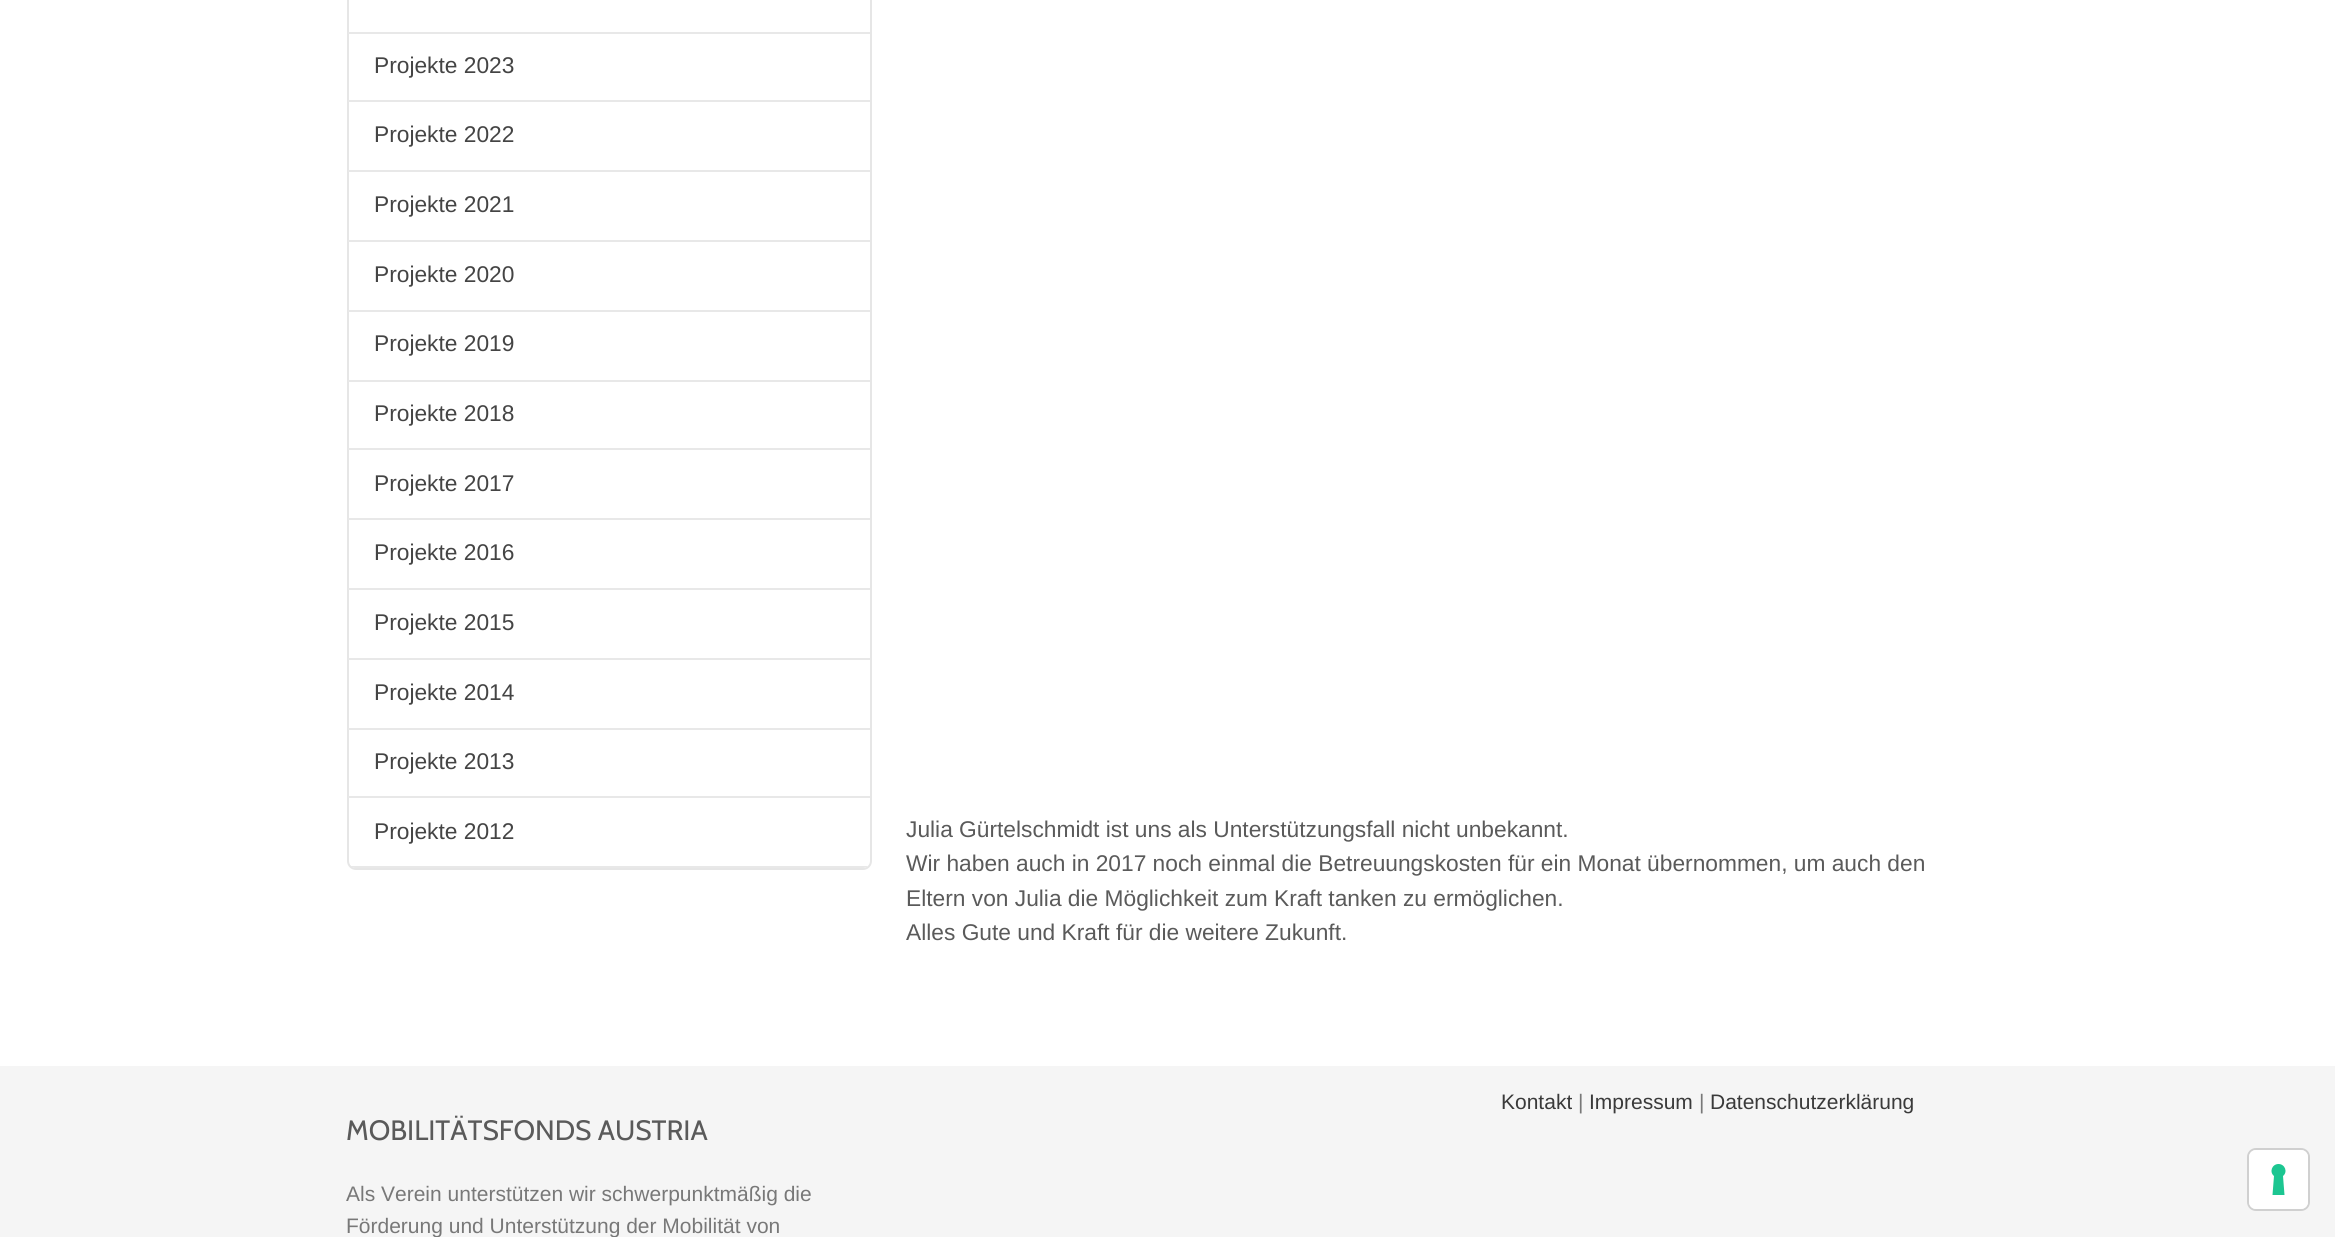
import math
import cairo


def use_color(cr, r, g, b):
  cr.set_source_rgb(r / 255, g / 255, b / 255)

def text(cr, x, y, s, family, size, color, bold=False, italic=False):
  cr.select_font_face(family, cairo.FONT_SLANT_ITALIC if italic else cairo.FONT_SLANT_NORMAL, cairo.FONT_WEIGHT_BOLD if bold else cairo.FONT_WEIGHT_NORMAL)
  cr.set_font_size(size)
  use_color(cr, *color)
  cr.move_to(x, y)
  cr.show_text(s)

def box(cr, x, y, w, h, *color):
  use_color(cr, *color)
  cr.rectangle(x, y, w, h)
  cr.fill()

def round_rect(cr, x, y, w, h, r):
  cr.new_sub_path()
  for i, (u, v) in enumerate([(x + w - r, y + h - r), (x + r, y + h - r), (x + r, y + r), (x + w - r, y + r)]):
    cr.arc(u, v, r, i * math.pi / 2, (i + 1) * math.pi / 2)
  cr.close_path()

def draw(cr):
  use_color(cr, 255, 255, 255)
  cr.paint()
  round_rect(cr, 348, -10, 523, 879, 8)
  cr.set_source_rgba(0, 0, 0, 0.1)
  cr.stroke()
  box(cr, 348, 32, 522, 2, 232, 232, 232)
  box(cr, 348, 100, 522, 2, 232, 232, 232)
  box(cr, 348, 170, 522, 2, 232, 232, 232)
  box(cr, 348, 240, 522, 2, 232, 232, 232)
  box(cr, 348, 310, 522, 2, 232, 232, 232)
  box(cr, 348, 380, 522, 2, 232, 232, 232)
  box(cr, 348, 448, 522, 2, 232, 232, 232)
  box(cr, 348, 518, 522, 2, 232, 232, 232)
  box(cr, 348, 588, 522, 2, 232, 232, 232)
  box(cr, 348, 658, 522, 2, 232, 232, 232)
  box(cr, 348, 728, 522, 2, 232, 232, 232)
  box(cr, 348, 796, 522, 2, 232, 232, 232)
  cr.save()
  round_rect(cr, 348, -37, 522, 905, 7)
  cr.clip()
  box(cr, 348, 866, 522, 2, 232, 232, 232)
  cr.restore()
  box(cr, 0, 1066, 2335, 171, 245, 245, 245)
  round_rect(cr, 2248, 1149, 61, 61, 8)
  use_color(cr, 208, 208, 208)
  cr.stroke()
  use_color(cr, 255, 255, 255)
  round_rect(cr, 2249, 1150, 59, 59, 7)
  cr.fill()
  use_color(cr, 28, 198, 145)
  cr.set_fill_rule(cairo.FILL_RULE_EVEN_ODD)
  cr.new_path()
  cr.move_to(2278.5, 1164)
  cr.curve_to(2285, 1164, 2288, 1172, 2283, 1176)
  cr.line_to(2284.5, 1195)
  cr.line_to(2272.5, 1195)
  cr.line_to(2274, 1176)
  cr.curve_to(2269, 1172, 2272, 1164, 2278.5, 1164)
  cr.close_path()
  cr.fill()
  text(cr, 374, 73, "Projekte 2023", "Liberation Sans", 22.75, (68, 68, 68))
  text(cr, 374, 142, "Projekte 2022", "Liberation Sans", 22.75, (68, 68, 68))
  text(cr, 374, 212, "Projekte 2021", "Liberation Sans", 22.75, (68, 68, 68))
  text(cr, 374, 282, "Projekte 2020", "Liberation Sans", 22.75, (68, 68, 68))
  text(cr, 374, 351, "Projekte 2019", "Liberation Sans", 22.75, (68, 68, 68))
  text(cr, 374, 421, "Projekte 2018", "Liberation Sans", 22.75, (68, 68, 68))
  text(cr, 374, 491, "Projekte 2017", "Liberation Sans", 22.75, (68, 68, 68))
  text(cr, 374, 560, "Projekte 2016", "Liberation Sans", 22.75, (68, 68, 68))
  text(cr, 374, 630, "Projekte 2015", "Liberation Sans", 22.75, (68, 68, 68))
  text(cr, 374, 700, "Projekte 2014", "Liberation Sans", 22.75, (68, 68, 68))
  text(cr, 374, 769, "Projekte 2013", "Liberation Sans", 22.75, (68, 68, 68))
  text(cr, 374, 839, "Projekte 2012", "Liberation Sans", 22.75, (68, 68, 68))
  text(cr, 906, 837, "Julia Gürtelschmidt ist uns als Unterstützungsfall nicht unbekannt.", "Liberation Sans", 22.75, (90, 90, 90))
  text(cr, 906, 871, "Wir haben auch in 2017 noch einmal die Betreuungskosten für ein Monat übernommen, um auch den", "Liberation Sans", 22.75, (90, 90, 90))
  text(cr, 906, 906, "Eltern von Julia die Möglichkeit zum Kraft tanken zu ermöglichen.", "Liberation Sans", 22.75, (90, 90, 90))
  text(cr, 906, 940, "Alles Gute und Kraft für die weitere Zukunft.", "Liberation Sans", 22.75, (90, 90, 90))
  text(cr, 1501, 1109, "Kontakt", "Liberation Sans", 21, (58, 58, 58))
  text(cr, 1578, 1109, "|", "Liberation Sans", 21, (120, 120, 120))
  text(cr, 1589, 1109, "Impressum", "Liberation Sans", 21, (58, 58, 58))
  text(cr, 1699, 1109, "|", "Liberation Sans", 21, (120, 120, 120))
  text(cr, 1710, 1109, "Datenschutzerklärung", "Liberation Sans", 21, (58, 58, 58))
  text(cr, 346, 1140, "MOBILITÄTSFONDS AUSTRIA", "Cabin", 28, (90, 90, 90))
  text(cr, 346, 1201, "Als Verein unterstützen wir schwerpunktmäßig die", "Liberation Sans", 21, (120, 120, 120))
  text(cr, 346, 1233, "Förderung und Unterstützung der Mobilität von", "Liberation Sans", 21, (120, 120, 120))


surface = cairo.ImageSurface(cairo.FORMAT_RGB24, 2335, 1237)
cr = cairo.Context(surface)
options = cairo.FontOptions()
options.set_hint_metrics(cairo.HINT_METRICS_OFF)
options.set_hint_style(cairo.HINT_STYLE_NONE)
cr.set_font_options(options)
cr.set_miter_limit(4)
draw(cr)
surface.write_to_png("out.png")
